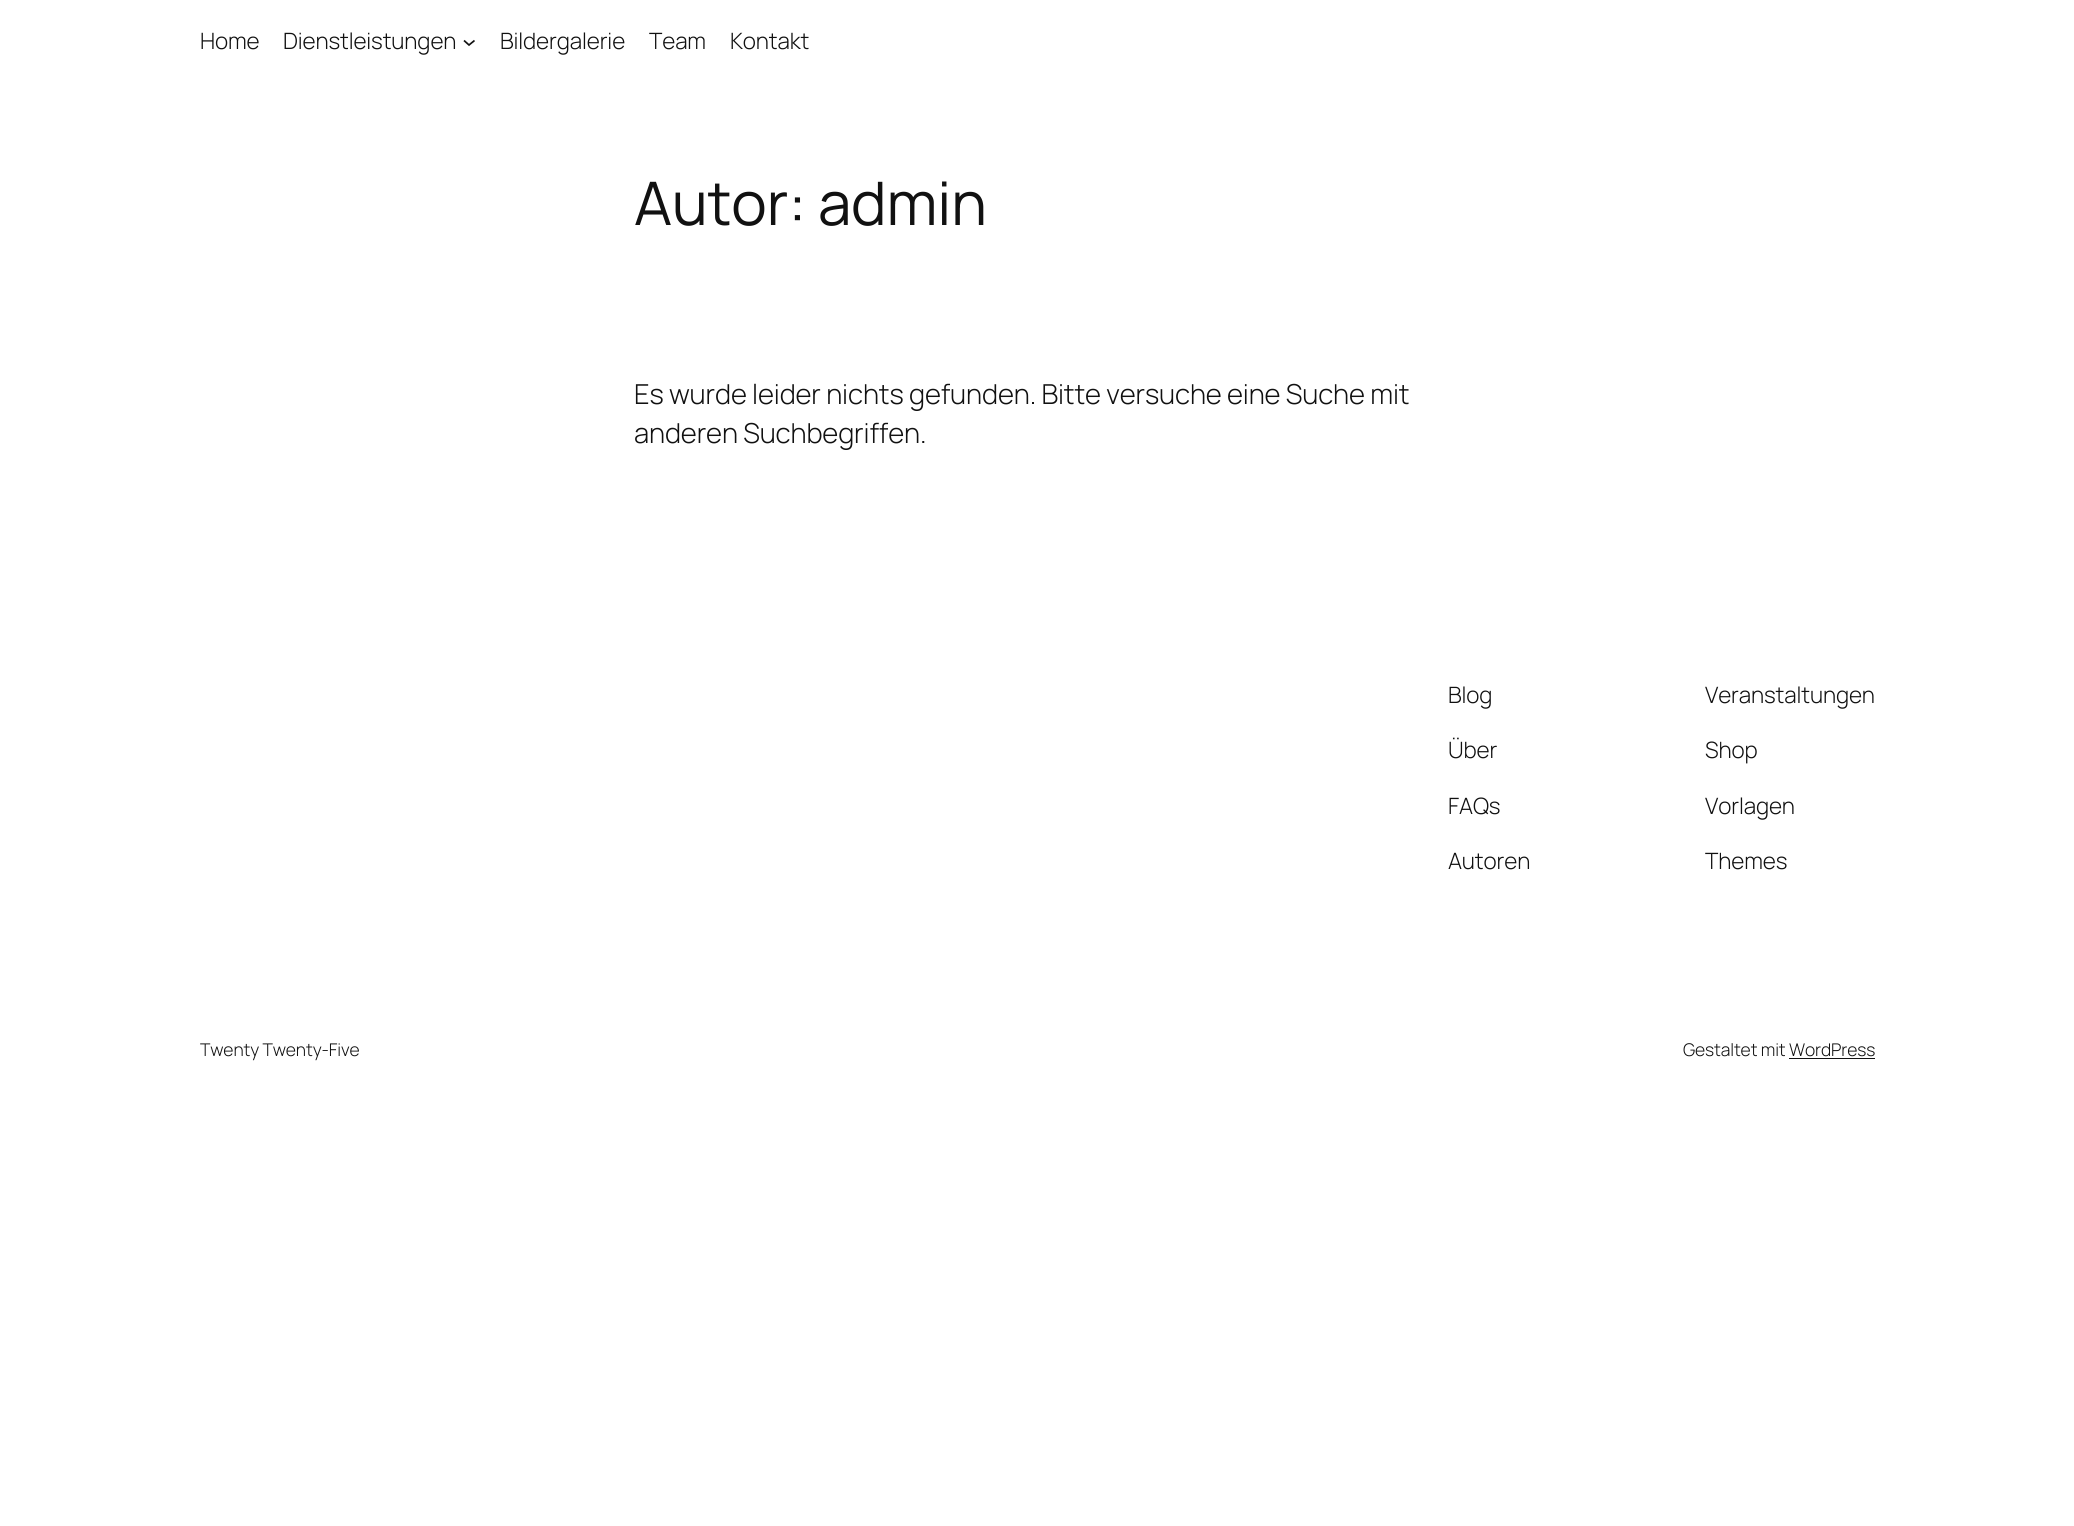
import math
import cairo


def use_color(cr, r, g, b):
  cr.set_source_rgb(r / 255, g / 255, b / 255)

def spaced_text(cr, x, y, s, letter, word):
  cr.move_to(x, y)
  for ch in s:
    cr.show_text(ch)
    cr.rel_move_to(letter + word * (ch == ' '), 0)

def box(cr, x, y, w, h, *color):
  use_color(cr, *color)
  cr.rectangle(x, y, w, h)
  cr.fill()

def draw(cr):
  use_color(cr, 255, 255, 255)
  cr.paint()
  cr.new_path()
  cr.move_to(464, 40.5)
  cr.line_to(469, 45)
  cr.line_to(474.5, 40.5)
  use_color(cr, 17, 17, 17)
  cr.set_line_width(1.7)
  cr.stroke()
  box(cr, 1789, 1058, 86, 1, 17, 17, 17)
  cr.select_font_face("Manrope Light")
  cr.set_font_size(22.5)
  spaced_text(cr, 200, 49, "Home", -0.12, 0)
  spaced_text(cr, 283, 49, "Dienstleistungen", -0.12, 0)
  spaced_text(cr, 500, 49, "Bildergalerie", -0.12, 0)
  spaced_text(cr, 649, 49, "Team", -0.12, 0)
  spaced_text(cr, 730, 49, "Kontakt", -0.12, 0)
  cr.select_font_face("Manrope")
  cr.set_font_size(60)
  spaced_text(cr, 634, 225, "Autor: admin", -0.12, 0)
  cr.select_font_face("Manrope Light")
  cr.set_font_size(27.5)
  spaced_text(cr, 634, 404, "Es wurde leider nichts gefunden. Bitte versuche eine Suche mit", -0.12, 0)
  spaced_text(cr, 634, 443, "anderen Suchbegriffen.", -0.12, 0)
  cr.set_font_size(22.5)
  spaced_text(cr, 1448, 703, "Blog", -0.12, 0)
  spaced_text(cr, 1448, 758, "Über", -0.12, 0)
  spaced_text(cr, 1448, 814, "FAQs", -0.12, 0)
  spaced_text(cr, 1448, 869, "Autoren", -0.12, 0)
  spaced_text(cr, 1705, 703, "Veranstaltungen", -0.12, 0)
  spaced_text(cr, 1705, 758, "Shop", -0.12, 0)
  spaced_text(cr, 1705, 814, "Vorlagen", -0.12, 0)
  spaced_text(cr, 1705, 869, "Themes", -0.12, 0)
  cr.set_font_size(17.5)
  spaced_text(cr, 200, 1056, "Twenty Twenty-Five", -0.12, 0)
  spaced_text(cr, 1683, 1056, "Gestaltet mit WordPress", -0.12, 0)


surface = cairo.ImageSurface(cairo.FORMAT_RGB24, 2074, 1526)
cr = cairo.Context(surface)
options = cairo.FontOptions()
options.set_hint_metrics(cairo.HINT_METRICS_OFF)
options.set_hint_style(cairo.HINT_STYLE_NONE)
cr.set_font_options(options)
cr.set_miter_limit(4)
draw(cr)
surface.write_to_png("out.png")
